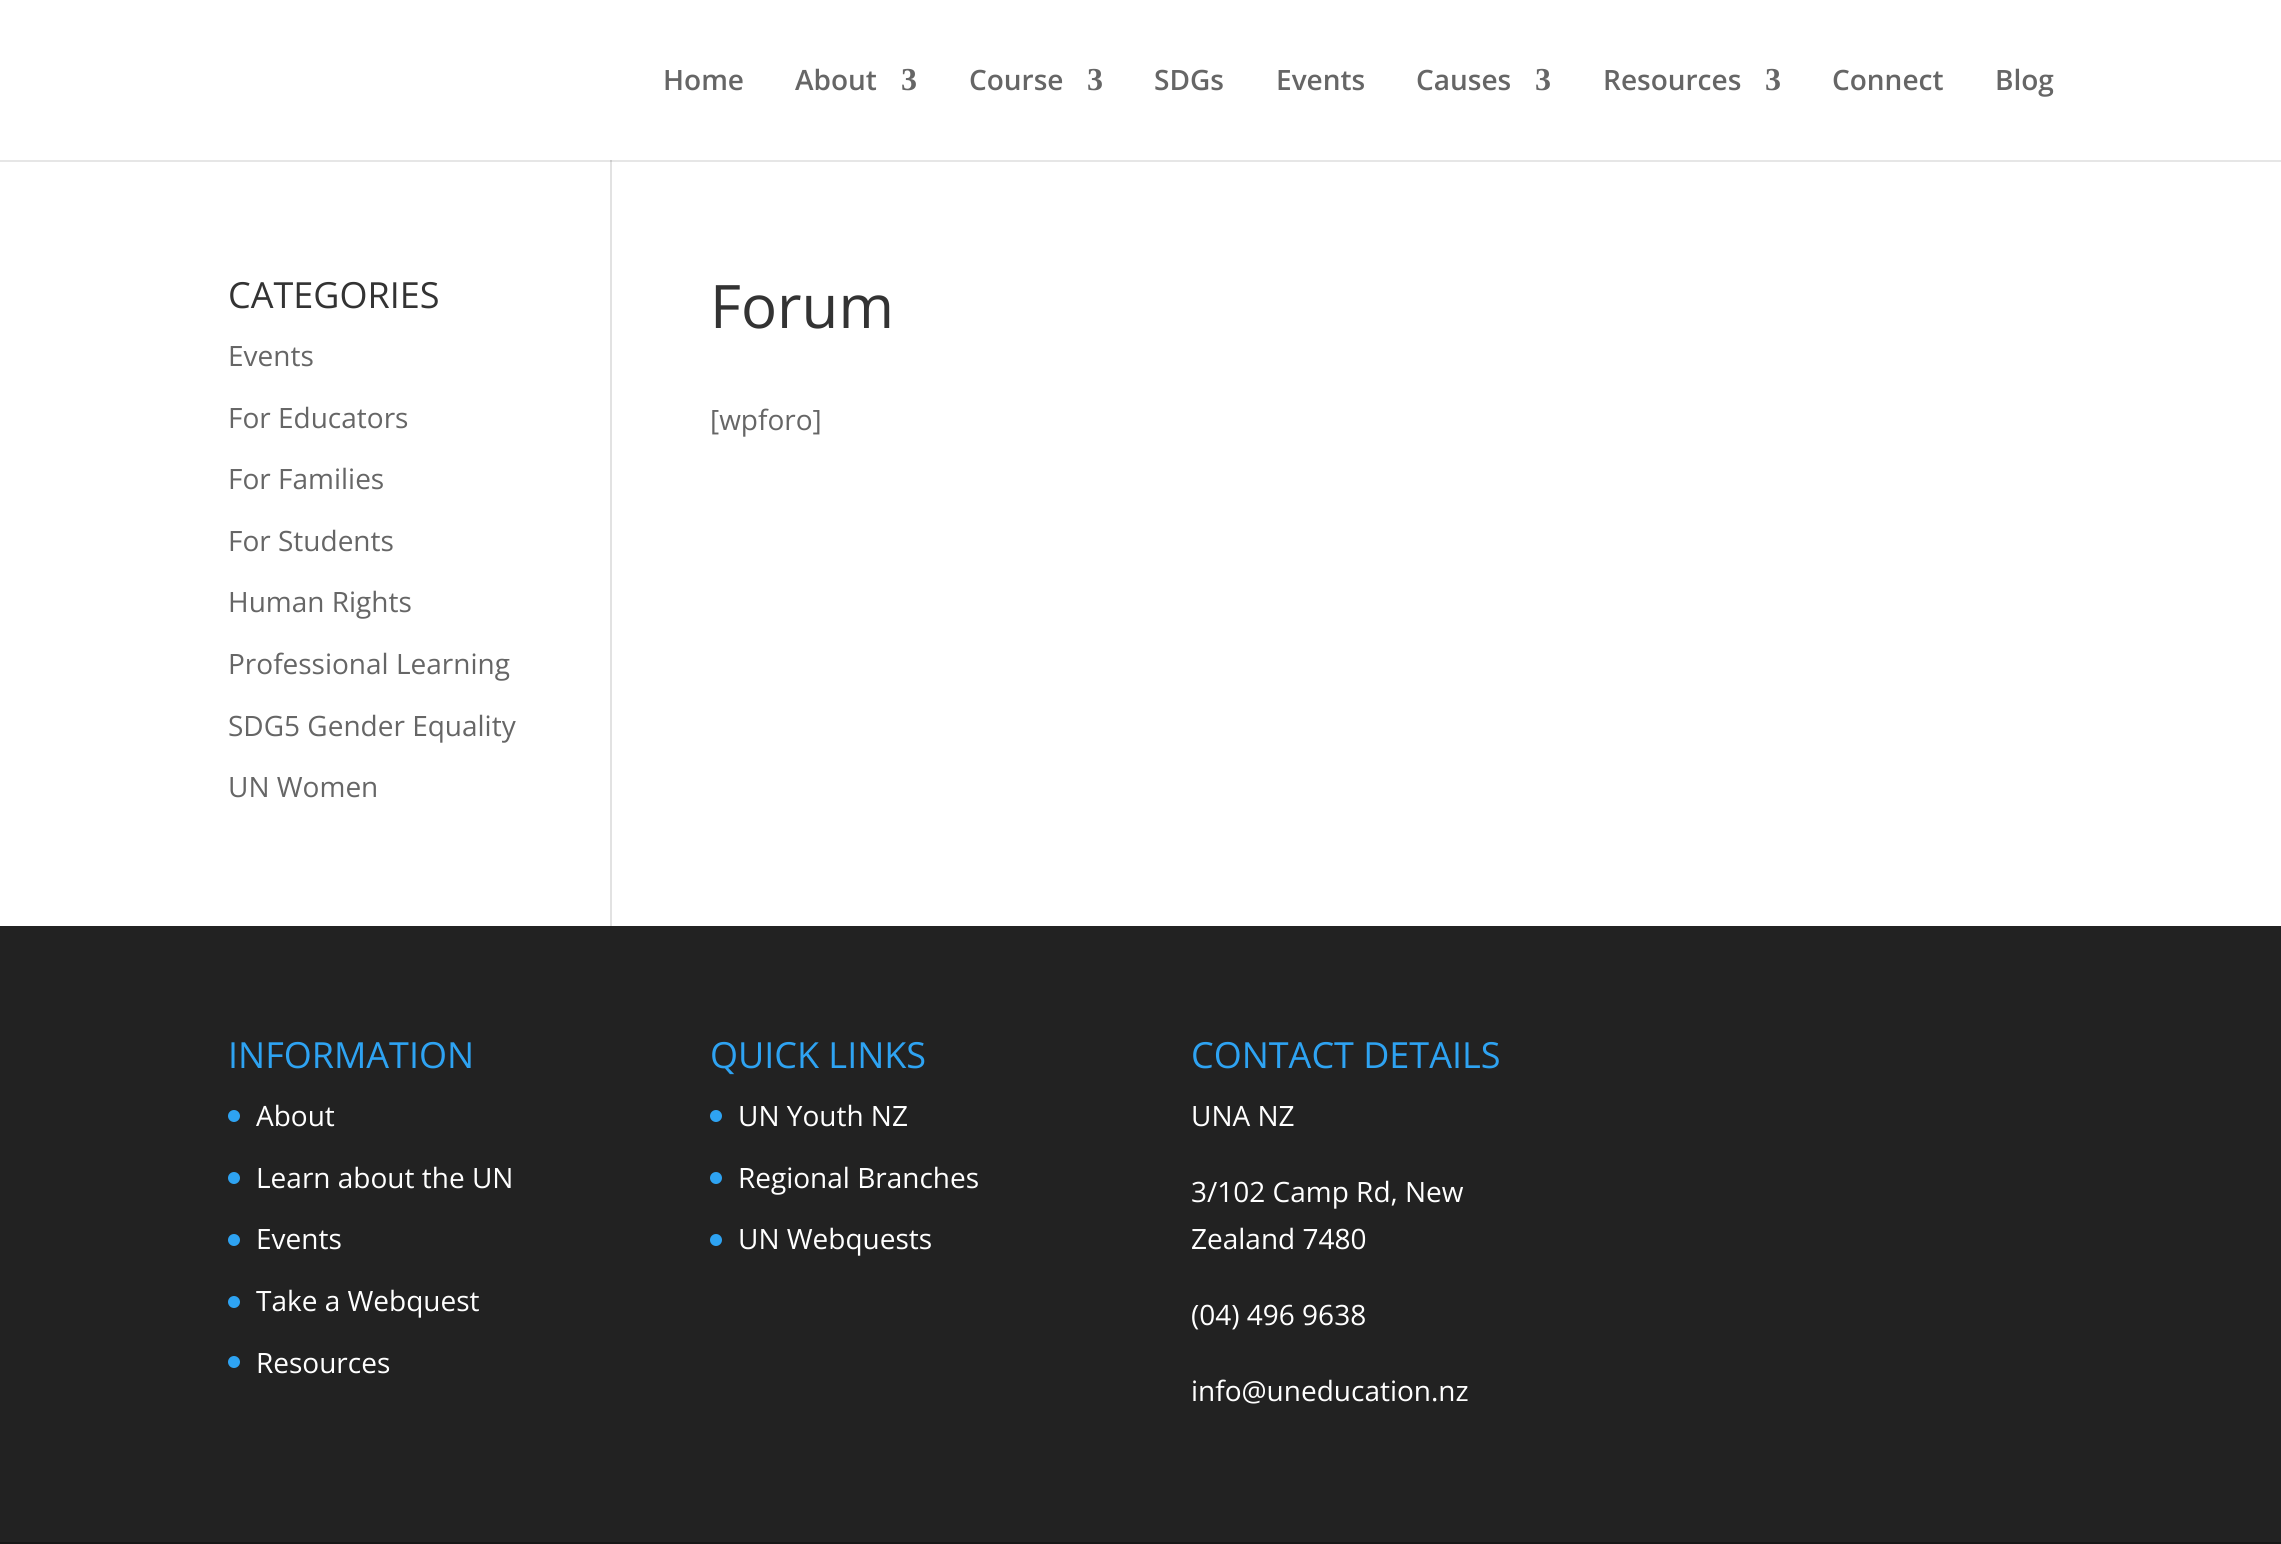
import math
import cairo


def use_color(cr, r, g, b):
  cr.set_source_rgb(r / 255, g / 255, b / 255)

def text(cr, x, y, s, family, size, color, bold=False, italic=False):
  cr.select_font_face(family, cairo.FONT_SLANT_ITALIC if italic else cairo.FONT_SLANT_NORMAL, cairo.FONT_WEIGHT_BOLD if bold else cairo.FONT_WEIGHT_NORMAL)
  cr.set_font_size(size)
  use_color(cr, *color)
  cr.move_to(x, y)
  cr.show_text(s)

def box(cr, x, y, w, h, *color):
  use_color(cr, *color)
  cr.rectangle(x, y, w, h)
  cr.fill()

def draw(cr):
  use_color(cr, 255, 255, 255)
  cr.paint()
  box(cr, 0, 160, 2281, 2, 230, 230, 230)
  box(cr, 610, 160, 2, 766, 226, 226, 226)
  box(cr, 610, 160, 2, 2, 203, 203, 203)
  box(cr, 0, 926, 2281, 616, 34, 34, 34)
  use_color(cr, 46, 163, 242)
  cr.arc(234, 1116, 6, 0, 2 * math.pi)
  cr.fill()
  cr.arc(234, 1178, 6, 0, 2 * math.pi)
  cr.fill()
  cr.arc(234, 1240, 6, 0, 2 * math.pi)
  cr.fill()
  cr.arc(234, 1302, 6, 0, 2 * math.pi)
  cr.fill()
  cr.arc(234, 1362, 6, 0, 2 * math.pi)
  cr.fill()
  cr.arc(716, 1116, 6, 0, 2 * math.pi)
  cr.fill()
  cr.arc(716, 1178, 6, 0, 2 * math.pi)
  cr.fill()
  cr.arc(716, 1240, 6, 0, 2 * math.pi)
  cr.fill()
  box(cr, 0, 1542, 2281, 2, 23, 23, 23)
  text(cr, 663, 90, "Home", "Open Sans SemiBold", 28, (102, 102, 102))
  text(cr, 795, 90, "About", "Open Sans SemiBold", 28, (102, 102, 102))
  text(cr, 901, 90, "3", "Liberation Serif", 32, (102, 102, 102), bold=True)
  text(cr, 969, 90, "Course", "Open Sans SemiBold", 28, (102, 102, 102))
  text(cr, 1087, 90, "3", "Liberation Serif", 32, (102, 102, 102), bold=True)
  text(cr, 1154, 90, "SDGs", "Open Sans SemiBold", 28, (102, 102, 102))
  text(cr, 1276, 90, "Events", "Open Sans SemiBold", 28, (102, 102, 102))
  text(cr, 1416, 90, "Causes", "Open Sans SemiBold", 28, (102, 102, 102))
  text(cr, 1535, 90, "3", "Liberation Serif", 32, (102, 102, 102), bold=True)
  text(cr, 1603, 90, "Resources", "Open Sans SemiBold", 28, (102, 102, 102))
  text(cr, 1765, 90, "3", "Liberation Serif", 32, (102, 102, 102), bold=True)
  text(cr, 1832, 90, "Connect", "Open Sans SemiBold", 28, (102, 102, 102))
  text(cr, 1995, 90, "Blog", "Open Sans SemiBold", 28, (102, 102, 102))
  text(cr, 228, 308, "CATEGORIES", "Open Sans", 36, (51, 51, 51))
  text(cr, 228, 366, "Events", "Open Sans", 28, (102, 102, 102))
  text(cr, 228, 428, "For Educators", "Open Sans", 28, (102, 102, 102))
  text(cr, 228, 489, "For Families", "Open Sans", 28, (102, 102, 102))
  text(cr, 228, 551, "For Students", "Open Sans", 28, (102, 102, 102))
  text(cr, 228, 612, "Human Rights", "Open Sans", 28, (102, 102, 102))
  text(cr, 228, 674, "Professional Learning", "Open Sans", 28, (102, 102, 102))
  text(cr, 228, 736, "SDG5 Gender Equality", "Open Sans", 28, (102, 102, 102))
  text(cr, 228, 797, "UN Women", "Open Sans", 28, (102, 102, 102))
  text(cr, 710, 328, "Forum", "Open Sans", 60, (51, 51, 51))
  text(cr, 710, 430, "[wpforo]", "Open Sans", 28, (102, 102, 102))
  text(cr, 228, 1068, "INFORMATION", "Open Sans", 36, (46, 163, 242))
  text(cr, 256, 1126, "About", "Open Sans", 28, (255, 255, 255))
  text(cr, 256, 1188, "Learn about the UN", "Open Sans", 28, (255, 255, 255))
  text(cr, 256, 1249, "Events", "Open Sans", 28, (255, 255, 255))
  text(cr, 256, 1311, "Take a Webquest", "Open Sans", 28, (255, 255, 255))
  text(cr, 256, 1373, "Resources", "Open Sans", 28, (255, 255, 255))
  text(cr, 710, 1068, "QUICK LINKS", "Open Sans", 36, (46, 163, 242))
  text(cr, 738, 1126, "UN Youth NZ", "Open Sans", 28, (255, 255, 255))
  text(cr, 738, 1188, "Regional Branches", "Open Sans", 28, (255, 255, 255))
  text(cr, 738, 1249, "UN Webquests", "Open Sans", 28, (255, 255, 255))
  text(cr, 1191, 1068, "CONTACT DETAILS", "Open Sans", 36, (46, 163, 242))
  text(cr, 1191, 1126, "UNA NZ", "Open Sans", 28, (255, 255, 255))
  text(cr, 1191, 1202, "3/102 Camp Rd, New", "Open Sans", 28, (255, 255, 255))
  text(cr, 1191, 1249, "Zealand 7480", "Open Sans", 28, (255, 255, 255))
  text(cr, 1191, 1325, "(04) 496 9638", "Open Sans", 28, (255, 255, 255))
  text(cr, 1191, 1401, "info@uneducation.nz", "Open Sans", 28, (255, 255, 255))


surface = cairo.ImageSurface(cairo.FORMAT_RGB24, 2281, 1544)
cr = cairo.Context(surface)
options = cairo.FontOptions()
options.set_hint_metrics(cairo.HINT_METRICS_OFF)
options.set_hint_style(cairo.HINT_STYLE_NONE)
cr.set_font_options(options)
cr.set_miter_limit(4)
draw(cr)
surface.write_to_png("out.png")
